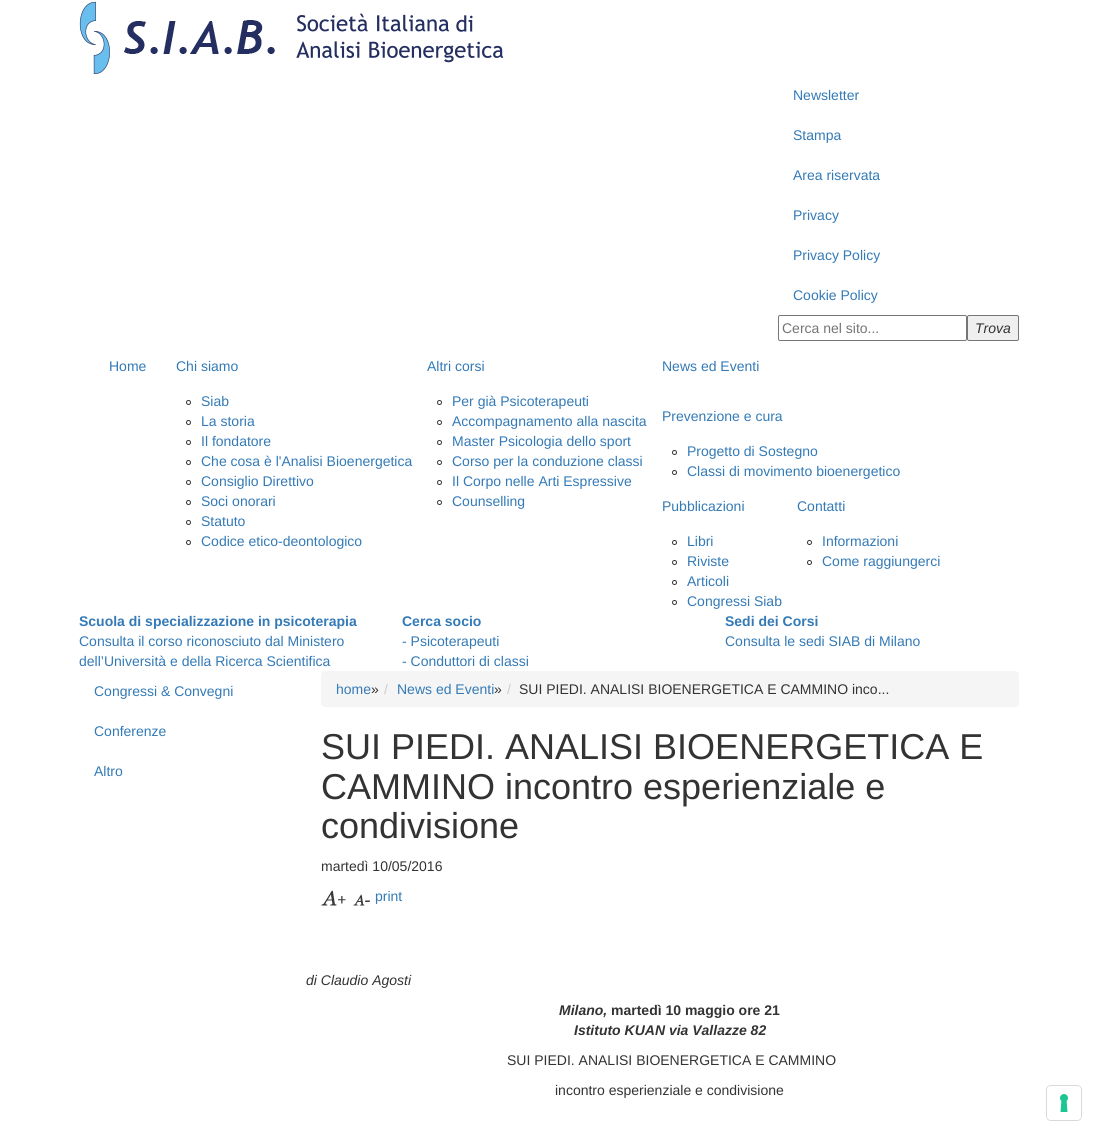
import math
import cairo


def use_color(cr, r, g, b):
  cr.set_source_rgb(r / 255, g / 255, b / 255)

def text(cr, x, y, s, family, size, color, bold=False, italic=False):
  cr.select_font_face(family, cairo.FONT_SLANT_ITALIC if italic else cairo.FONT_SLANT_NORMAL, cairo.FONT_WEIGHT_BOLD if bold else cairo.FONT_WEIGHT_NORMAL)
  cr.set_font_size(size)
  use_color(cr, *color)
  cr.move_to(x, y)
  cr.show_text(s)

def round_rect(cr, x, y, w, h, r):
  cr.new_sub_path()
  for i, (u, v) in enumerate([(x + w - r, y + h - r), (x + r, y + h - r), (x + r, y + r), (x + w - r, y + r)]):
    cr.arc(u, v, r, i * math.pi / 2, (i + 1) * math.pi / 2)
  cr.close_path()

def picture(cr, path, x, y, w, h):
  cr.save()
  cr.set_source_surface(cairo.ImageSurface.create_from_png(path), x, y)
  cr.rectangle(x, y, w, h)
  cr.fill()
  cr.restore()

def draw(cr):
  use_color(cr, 255, 255, 255)
  cr.paint()
  picture(cr, "img_01.png", 79, 1, 425, 73)
  round_rect(cr, 778.5, 315.5, 188, 25, 1.5)
  use_color(cr, 118, 118, 118)
  cr.set_line_width(1)
  cr.stroke()
  use_color(cr, 239, 239, 239)
  round_rect(cr, 967.5, 315.5, 51, 25, 1.5)
  cr.fill_preserve()
  use_color(cr, 118, 118, 118)
  cr.stroke()
  cr.arc(188.5, 402.5, 2, 0, 2 * math.pi)
  use_color(cr, 51, 51, 51)
  cr.stroke()
  cr.arc(188.5, 422.5, 2, 0, 2 * math.pi)
  cr.stroke()
  cr.arc(188.5, 442.5, 2, 0, 2 * math.pi)
  cr.stroke()
  cr.arc(188.5, 462.5, 2, 0, 2 * math.pi)
  cr.stroke()
  cr.arc(188.5, 482.5, 2, 0, 2 * math.pi)
  cr.stroke()
  cr.arc(188.5, 502.5, 2, 0, 2 * math.pi)
  cr.stroke()
  cr.arc(188.5, 522.5, 2, 0, 2 * math.pi)
  cr.stroke()
  cr.arc(188.5, 542.5, 2, 0, 2 * math.pi)
  cr.stroke()
  cr.arc(439.5, 402.5, 2, 0, 2 * math.pi)
  cr.stroke()
  cr.arc(439.5, 422.5, 2, 0, 2 * math.pi)
  cr.stroke()
  cr.arc(439.5, 442.5, 2, 0, 2 * math.pi)
  cr.stroke()
  cr.arc(439.5, 462.5, 2, 0, 2 * math.pi)
  cr.stroke()
  cr.arc(439.5, 482.5, 2, 0, 2 * math.pi)
  cr.stroke()
  cr.arc(439.5, 502.5, 2, 0, 2 * math.pi)
  cr.stroke()
  cr.arc(674.5, 452.5, 2, 0, 2 * math.pi)
  cr.stroke()
  cr.arc(674.5, 472.5, 2, 0, 2 * math.pi)
  cr.stroke()
  cr.arc(674.5, 542.5, 2, 0, 2 * math.pi)
  cr.stroke()
  cr.arc(674.5, 562.5, 2, 0, 2 * math.pi)
  cr.stroke()
  cr.arc(674.5, 582.5, 2, 0, 2 * math.pi)
  cr.stroke()
  cr.arc(674.5, 602.5, 2, 0, 2 * math.pi)
  cr.stroke()
  cr.arc(809.5, 542.5, 2, 0, 2 * math.pi)
  cr.stroke()
  cr.arc(809.5, 562.5, 2, 0, 2 * math.pi)
  cr.stroke()
  use_color(cr, 245, 245, 245)
  round_rect(cr, 321, 671, 698, 36, 4)
  cr.fill()
  picture(cr, "img_02.png", 321, 890, 25, 16)
  picture(cr, "img_03.png", 353, 894, 17, 12)
  round_rect(cr, 1046.5, 1085.5, 35, 35, 4.5)
  use_color(cr, 217, 217, 217)
  cr.stroke()
  use_color(cr, 255, 255, 255)
  round_rect(cr, 1047, 1086, 34, 34, 4)
  cr.fill()
  picture(cr, "img_04.png", 1060, 1094, 8, 18)
  text(cr, 793, 100, "Newsletter", "Liberation Sans", 14, (51, 122, 183))
  text(cr, 793, 140, "Stampa", "Liberation Sans", 14, (51, 122, 183))
  text(cr, 793, 180, "Area riservata", "Liberation Sans", 14, (51, 122, 183))
  text(cr, 793, 220, "Privacy", "Liberation Sans", 14, (51, 122, 183))
  text(cr, 793, 260, "Privacy Policy", "Liberation Sans", 14, (51, 122, 183))
  text(cr, 793, 300, "Cookie Policy", "Liberation Sans", 14, (51, 122, 183))
  text(cr, 782, 333, "Cerca nel sito...", "Liberation Sans", 14, (117, 117, 117))
  text(cr, 975, 333, "Trova", "Liberation Sans", 14, (51, 51, 51), italic=True)
  text(cr, 109, 371, "Home", "Liberation Sans", 14, (51, 122, 183))
  text(cr, 176, 371, "Chi siamo", "Liberation Sans", 14, (51, 122, 183))
  text(cr, 201, 406, "Siab", "Liberation Sans", 14, (51, 122, 183))
  text(cr, 201, 426, "La storia", "Liberation Sans", 14, (51, 122, 183))
  text(cr, 201, 446, "Il fondatore", "Liberation Sans", 14, (51, 122, 183))
  text(cr, 201, 466, "Che cosa è l'Analisi Bioenergetica", "Liberation Sans", 14, (51, 122, 183))
  text(cr, 201, 486, "Consiglio Direttivo", "Liberation Sans", 14, (51, 122, 183))
  text(cr, 201, 506, "Soci onorari", "Liberation Sans", 14, (51, 122, 183))
  text(cr, 201, 526, "Statuto", "Liberation Sans", 14, (51, 122, 183))
  text(cr, 201, 546, "Codice etico-deontologico", "Liberation Sans", 14, (51, 122, 183))
  text(cr, 427, 371, "Altri corsi", "Liberation Sans", 14, (51, 122, 183))
  text(cr, 452, 406, "Per già Psicoterapeuti", "Liberation Sans", 14, (51, 122, 183))
  text(cr, 452, 426, "Accompagnamento alla nascita", "Liberation Sans", 14, (51, 122, 183))
  text(cr, 452, 446, "Master Psicologia dello sport", "Liberation Sans", 14, (51, 122, 183))
  text(cr, 452, 466, "Corso per la conduzione classi", "Liberation Sans", 14, (51, 122, 183))
  text(cr, 452, 486, "Il Corpo nelle Arti Espressive", "Liberation Sans", 14, (51, 122, 183))
  text(cr, 452, 506, "Counselling", "Liberation Sans", 14, (51, 122, 183))
  text(cr, 662, 371, "News ed Eventi", "Liberation Sans", 14, (51, 122, 183))
  text(cr, 662, 421, "Prevenzione e cura", "Liberation Sans", 14, (51, 122, 183))
  text(cr, 687, 456, "Progetto di Sostegno", "Liberation Sans", 14, (51, 122, 183))
  text(cr, 687, 476, "Classi di movimento bioenergetico", "Liberation Sans", 14, (51, 122, 183))
  text(cr, 662, 511, "Pubblicazioni", "Liberation Sans", 14, (51, 122, 183))
  text(cr, 687, 546, "Libri", "Liberation Sans", 14, (51, 122, 183))
  text(cr, 687, 566, "Riviste", "Liberation Sans", 14, (51, 122, 183))
  text(cr, 687, 586, "Articoli", "Liberation Sans", 14, (51, 122, 183))
  text(cr, 687, 606, "Congressi Siab", "Liberation Sans", 14, (51, 122, 183))
  text(cr, 797, 511, "Contatti", "Liberation Sans", 14, (51, 122, 183))
  text(cr, 822, 546, "Informazioni", "Liberation Sans", 14, (51, 122, 183))
  text(cr, 822, 566, "Come raggiungerci", "Liberation Sans", 14, (51, 122, 183))
  text(cr, 79, 626, "Scuola di specializzazione in psicoterapia", "Liberation Sans", 14, (51, 122, 183), bold=True)
  text(cr, 79, 646, "Consulta il corso riconosciuto dal Ministero", "Liberation Sans", 14, (51, 122, 183))
  text(cr, 79, 666, "dell’Università e della Ricerca Scientifica", "Liberation Sans", 14, (51, 122, 183))
  text(cr, 402, 626, "Cerca socio", "Liberation Sans", 14, (51, 122, 183), bold=True)
  text(cr, 402, 646, "- Psicoterapeuti", "Liberation Sans", 14, (51, 122, 183))
  text(cr, 402, 666, "- Conduttori di classi", "Liberation Sans", 14, (51, 122, 183))
  text(cr, 725, 626, "Sedi dei Corsi", "Liberation Sans", 14, (51, 122, 183), bold=True)
  text(cr, 725, 646, "Consulta le sedi SIAB di Milano", "Liberation Sans", 14, (51, 122, 183))
  text(cr, 94, 696, "Congressi & Convegni", "Liberation Sans", 14, (51, 122, 183))
  text(cr, 94, 736, "Conferenze", "Liberation Sans", 14, (51, 122, 183))
  text(cr, 94, 776, "Altro", "Liberation Sans", 14, (51, 122, 183))
  text(cr, 336, 694, "home", "Liberation Sans", 14, (51, 122, 183))
  text(cr, 371, 694, "»", "Liberation Sans", 14, (51, 51, 51))
  text(cr, 384, 694, "/", "Liberation Sans", 14, (204, 204, 204))
  text(cr, 397, 694, "News ed Eventi", "Liberation Sans", 14, (51, 122, 183))
  text(cr, 494, 694, "»", "Liberation Sans", 14, (51, 51, 51))
  text(cr, 507, 694, "/", "Liberation Sans", 14, (204, 204, 204))
  text(cr, 519, 694, "SUI PIEDI. ANALISI BIOENERGETICA E CAMMINO inco...", "Liberation Sans", 14, (51, 51, 51))
  text(cr, 321, 759, "SUI PIEDI. ANALISI BIOENERGETICA E", "Liberation Sans", 36, (51, 51, 51))
  text(cr, 321, 799, "CAMMINO incontro esperienziale e", "Liberation Sans", 36, (51, 51, 51))
  text(cr, 321, 838, "condivisione", "Liberation Sans", 36, (51, 51, 51))
  text(cr, 321, 871, "martedì 10/05/2016", "Liberation Sans", 14, (51, 51, 51))
  text(cr, 375, 901, "print", "Liberation Sans", 14, (51, 122, 183))
  text(cr, 306, 985, "di Claudio Agosti", "Liberation Sans", 14, (51, 51, 51), italic=True)
  text(cr, 559, 1015, "Milano,", "Liberation Sans", 14, (51, 51, 51), bold=True, italic=True)
  text(cr, 611, 1015, "martedì 10 maggio ore 21", "Liberation Sans", 14, (51, 51, 51), bold=True)
  text(cr, 574, 1035, "Istituto KUAN via Vallazze 82", "Liberation Sans", 14, (51, 51, 51), bold=True, italic=True)
  text(cr, 507, 1065, "SUI PIEDI. ANALISI BIOENERGETICA E CAMMINO", "Liberation Sans", 14, (51, 51, 51))
  text(cr, 555, 1095, "incontro esperienziale e condivisione", "Liberation Sans", 14, (51, 51, 51))


surface = cairo.ImageSurface(cairo.FORMAT_RGB24, 1097, 1136)
cr = cairo.Context(surface)
options = cairo.FontOptions()
options.set_hint_metrics(cairo.HINT_METRICS_OFF)
options.set_hint_style(cairo.HINT_STYLE_NONE)
cr.set_font_options(options)
cr.set_miter_limit(4)
draw(cr)
surface.write_to_png("out.png")
